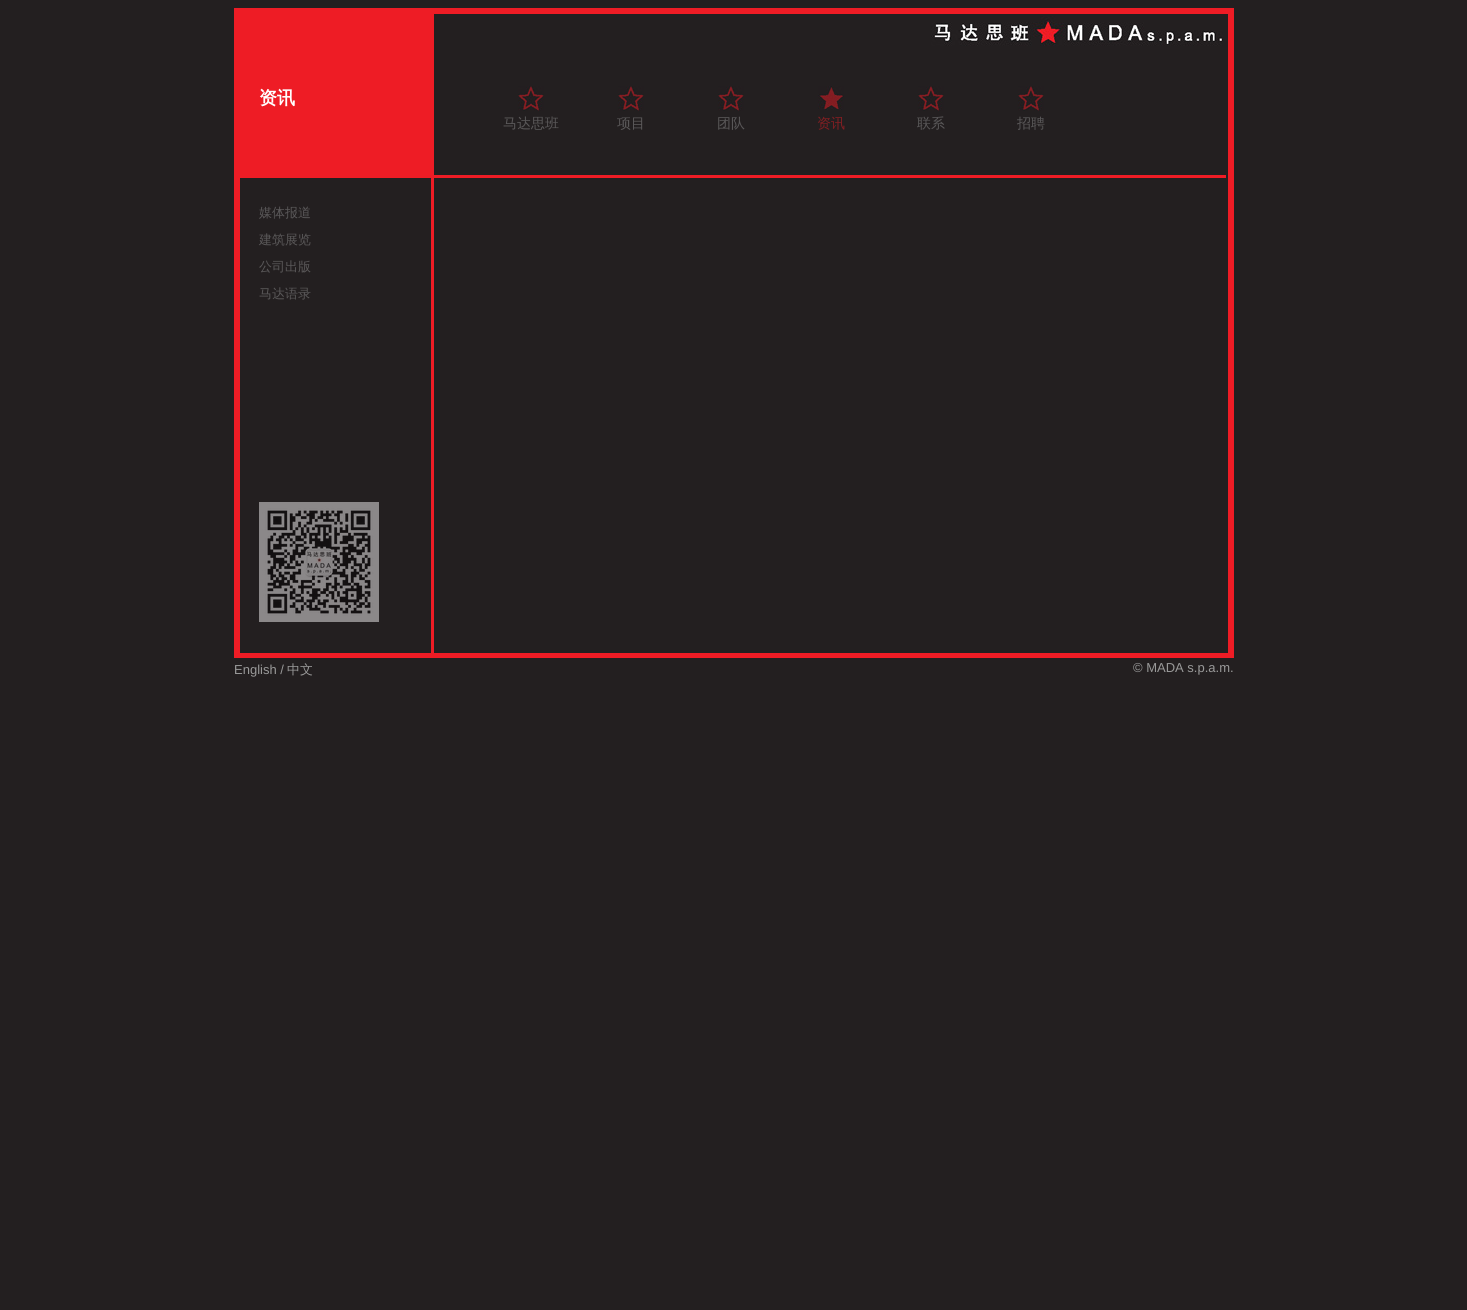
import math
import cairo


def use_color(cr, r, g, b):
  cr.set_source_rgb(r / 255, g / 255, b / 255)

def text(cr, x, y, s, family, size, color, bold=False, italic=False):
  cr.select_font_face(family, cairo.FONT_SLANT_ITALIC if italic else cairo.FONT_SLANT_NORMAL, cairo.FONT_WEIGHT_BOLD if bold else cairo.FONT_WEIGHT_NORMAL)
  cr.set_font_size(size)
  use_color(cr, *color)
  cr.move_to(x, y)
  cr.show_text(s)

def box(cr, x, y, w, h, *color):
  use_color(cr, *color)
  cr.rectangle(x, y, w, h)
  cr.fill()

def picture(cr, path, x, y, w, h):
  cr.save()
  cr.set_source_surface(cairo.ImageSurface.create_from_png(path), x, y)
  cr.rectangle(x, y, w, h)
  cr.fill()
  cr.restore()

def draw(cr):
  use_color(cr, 35, 31, 32)
  cr.paint()
  box(cr, 234, 8, 1000, 6, 238, 28, 37)
  box(cr, 234, 14, 200, 164, 238, 28, 37)
  box(cr, 1228, 14, 6, 639, 238, 28, 37)
  picture(cr, "img_01.png", 931, 16, 292, 30)
  picture(cr, "img_02.png", 518, 86, 26, 25)
  picture(cr, "img_02.png", 618, 86, 26, 25)
  picture(cr, "img_02.png", 718, 86, 26, 25)
  picture(cr, "img_03.png", 818, 86, 26, 24)
  picture(cr, "img_02.png", 918, 86, 26, 25)
  picture(cr, "img_02.png", 1018, 86, 26, 25)
  box(cr, 434, 175, 792, 3, 238, 28, 37)
  box(cr, 234, 178, 6, 475, 238, 28, 37)
  picture(cr, "img_04.png", 259, 502, 120, 120)
  box(cr, 431, 178, 3, 475, 238, 28, 37)
  box(cr, 234, 653, 1000, 5, 238, 28, 37)
  text(cr, 259, 104, "资讯", "WenQuanYi Zen Hei", 18, (255, 255, 255), bold=True)
  text(cr, 503, 128, "马达思班", "WenQuanYi Zen Hei Medium", 14, (90, 88, 89))
  text(cr, 617, 128, "项目", "WenQuanYi Zen Hei Medium", 14, (90, 88, 89))
  text(cr, 717, 128, "团队", "WenQuanYi Zen Hei Medium", 14, (90, 88, 89))
  text(cr, 817, 128, "资讯", "WenQuanYi Zen Hei Medium", 14, (130, 30, 34))
  text(cr, 917, 128, "联系", "WenQuanYi Zen Hei Medium", 14, (90, 88, 89))
  text(cr, 1017, 128, "招聘", "WenQuanYi Zen Hei Medium", 14, (90, 88, 89))
  text(cr, 259, 217, "媒体报道", "WenQuanYi Zen Hei Medium", 13, (90, 88, 89))
  text(cr, 259, 244, "建筑展览", "WenQuanYi Zen Hei Medium", 13, (90, 88, 89))
  text(cr, 259, 271, "公司出版", "WenQuanYi Zen Hei Medium", 13, (90, 88, 89))
  text(cr, 259, 298, "马达语录", "WenQuanYi Zen Hei Medium", 13, (90, 88, 89))
  text(cr, 234, 674, "English /", "Liberation Sans", 13, (153, 153, 153))
  text(cr, 287, 674, "中文", "WenQuanYi Zen Hei Medium", 13, (153, 153, 153))
  text(cr, 1133, 672, "© MADA s.p.a.m.", "Liberation Sans", 13, (153, 153, 153))


surface = cairo.ImageSurface(cairo.FORMAT_RGB24, 1467, 1310)
cr = cairo.Context(surface)
options = cairo.FontOptions()
options.set_hint_metrics(cairo.HINT_METRICS_OFF)
options.set_hint_style(cairo.HINT_STYLE_NONE)
cr.set_font_options(options)
cr.set_miter_limit(4)
draw(cr)
surface.write_to_png("out.png")
